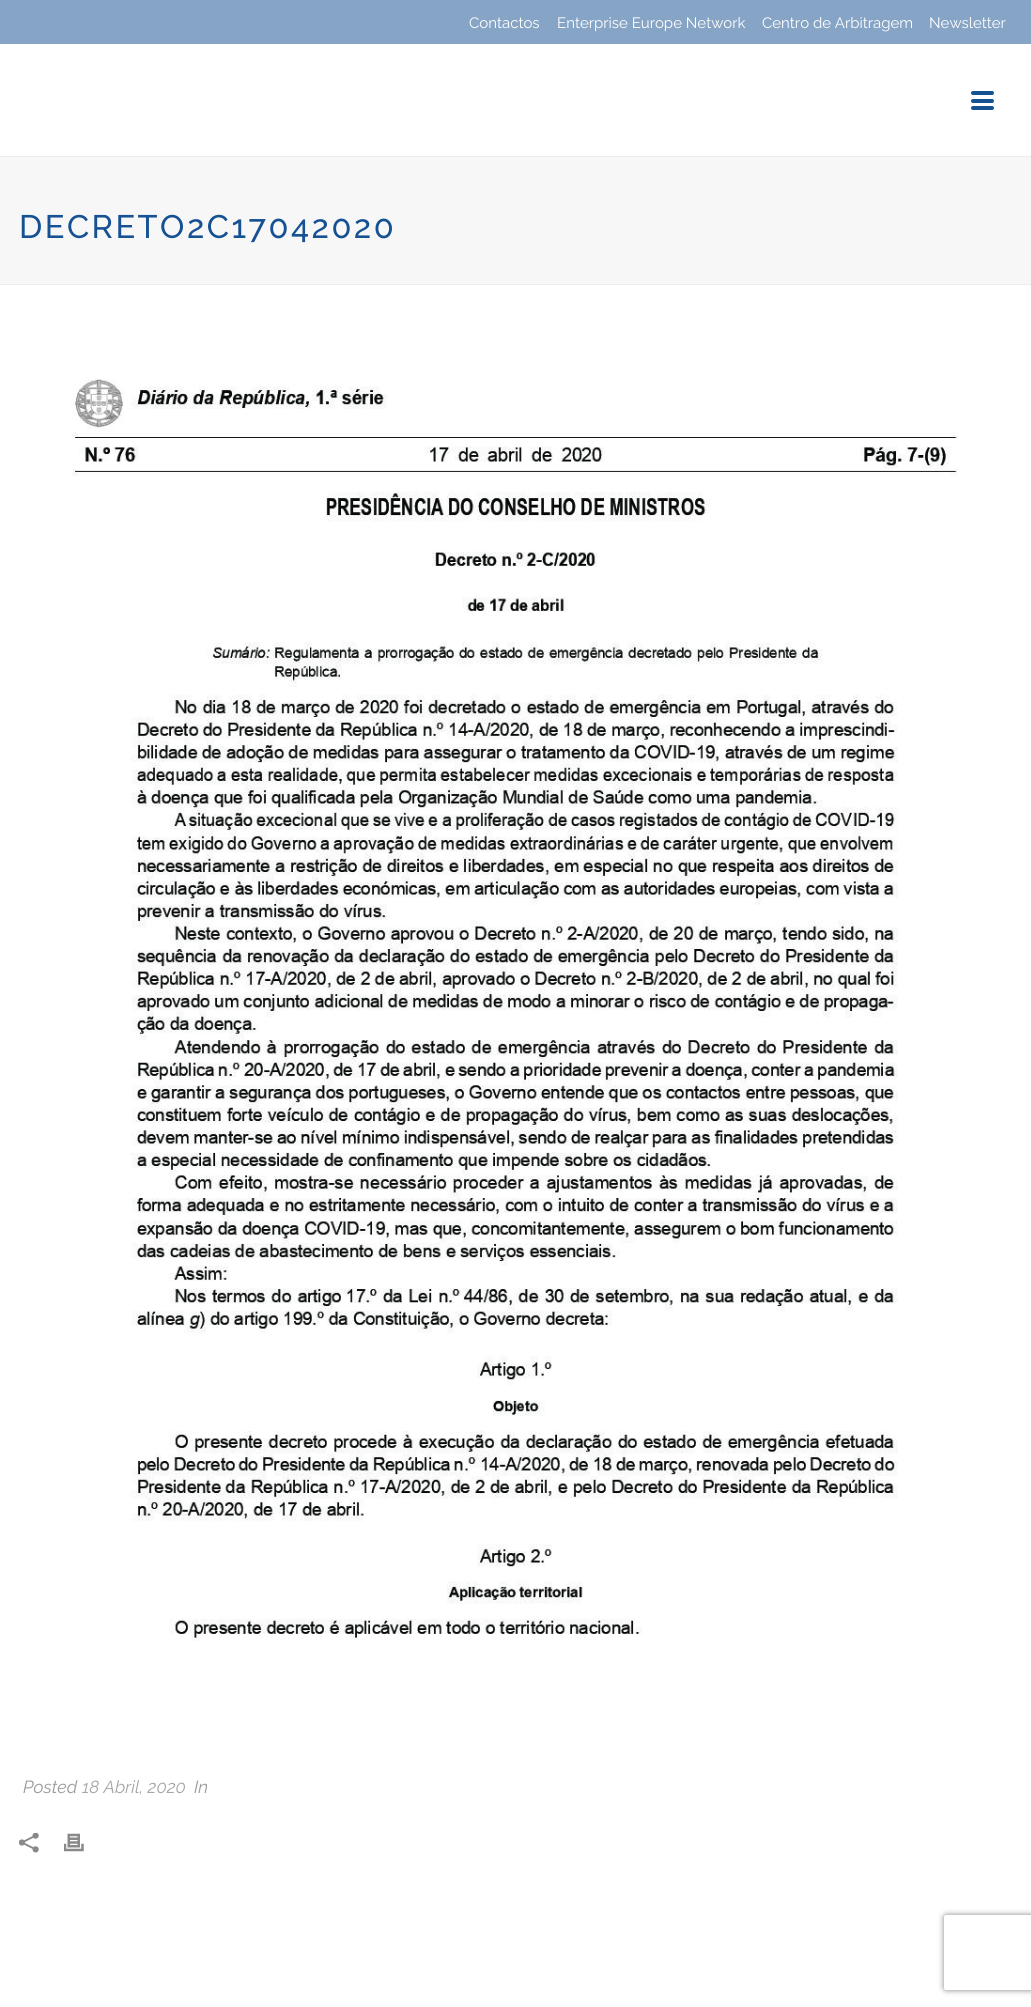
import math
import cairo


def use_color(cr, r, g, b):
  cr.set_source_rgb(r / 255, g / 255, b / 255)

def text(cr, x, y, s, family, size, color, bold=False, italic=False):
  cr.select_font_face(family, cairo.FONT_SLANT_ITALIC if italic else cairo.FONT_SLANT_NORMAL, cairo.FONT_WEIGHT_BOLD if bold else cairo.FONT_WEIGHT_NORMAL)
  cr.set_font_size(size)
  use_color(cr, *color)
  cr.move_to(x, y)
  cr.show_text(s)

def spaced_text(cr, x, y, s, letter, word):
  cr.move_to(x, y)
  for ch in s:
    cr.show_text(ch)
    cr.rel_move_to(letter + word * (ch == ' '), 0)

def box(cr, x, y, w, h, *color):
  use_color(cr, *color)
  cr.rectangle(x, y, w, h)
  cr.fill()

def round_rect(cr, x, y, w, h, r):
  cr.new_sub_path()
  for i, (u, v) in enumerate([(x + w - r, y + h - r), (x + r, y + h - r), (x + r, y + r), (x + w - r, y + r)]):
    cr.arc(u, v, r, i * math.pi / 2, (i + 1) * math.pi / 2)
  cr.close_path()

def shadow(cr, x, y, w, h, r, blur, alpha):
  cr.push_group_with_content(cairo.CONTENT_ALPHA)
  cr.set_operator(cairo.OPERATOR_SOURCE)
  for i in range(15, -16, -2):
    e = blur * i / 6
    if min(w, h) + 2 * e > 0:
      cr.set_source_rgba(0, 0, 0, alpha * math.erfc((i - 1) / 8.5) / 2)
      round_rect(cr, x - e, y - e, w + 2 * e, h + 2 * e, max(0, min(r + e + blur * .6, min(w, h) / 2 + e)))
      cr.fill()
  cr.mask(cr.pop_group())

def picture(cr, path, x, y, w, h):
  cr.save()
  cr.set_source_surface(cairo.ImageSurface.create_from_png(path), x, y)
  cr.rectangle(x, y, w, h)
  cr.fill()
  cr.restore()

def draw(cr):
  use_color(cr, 255, 255, 255)
  cr.paint()
  box(cr, 0, 157, 1031, 127, 247, 247, 247)
  box(cr, 0, 284, 1031, 1, 237, 237, 237)
  box(cr, 0, 0, 1031, 44, 134, 164, 197)
  box(cr, 0, 156, 1031, 1, 237, 237, 237)
  use_color(cr, 21, 81, 147)
  round_rect(cr, 971, 91, 23, 4, 2)
  cr.fill()
  round_rect(cr, 971, 99, 23, 4, 2)
  cr.fill()
  round_rect(cr, 971, 106, 23, 4, 2)
  cr.fill()
  picture(cr, "img_01.png", 71, 379, 887, 1262)
  picture(cr, "img_02.png", 19, 1833, 20, 20)
  picture(cr, "img_03.png", 64, 1833, 20, 19)
  cr.save()
  cr.set_fill_rule(cairo.FILL_RULE_EVEN_ODD)
  cr.new_path()
  cr.move_to(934, 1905)
  cr.line_to(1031, 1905)
  cr.line_to(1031, 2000)
  cr.line_to(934, 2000)
  cr.close_path()
  cr.move_to(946.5, 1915)
  cr.line_to(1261.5, 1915)
  cr.curve_to(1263, 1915, 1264, 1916, 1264, 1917.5)
  cr.line_to(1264, 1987.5)
  cr.curve_to(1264, 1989, 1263, 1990, 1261.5, 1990)
  cr.line_to(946.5, 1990)
  cr.curve_to(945, 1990, 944, 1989, 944, 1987.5)
  cr.line_to(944, 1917.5)
  cr.curve_to(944, 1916, 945, 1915, 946.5, 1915)
  cr.close_path()
  cr.clip()
  use_color(cr, 128, 128, 128)
  shadow(cr, 944, 1915, 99, 75, 2.5, 3, 1)
  cr.restore()
  text(cr, 469, 28, "Contactos", "Raleway", 15, (255, 255, 255))
  text(cr, 557, 28, "Enterprise Europe Network", "Raleway", 15, (255, 255, 255))
  text(cr, 762, 28, "Centro de Arbitragem", "Raleway", 15, (255, 255, 255))
  text(cr, 929, 28, "Newsletter", "Raleway", 15, (255, 255, 255))
  cr.select_font_face("Raleway Medium")
  cr.set_font_size(32.5)
  use_color(cr, 21, 81, 147)
  spaced_text(cr, 19, 238, "DECRETO2C17042020", 2.5, 0)
  text(cr, 23, 1793, "Posted", "Raleway", 17.5, (153, 153, 153), italic=True)
  text(cr, 82, 1793, "18 Abril, 2020", "Raleway", 17.5, (166, 166, 166), italic=True)
  text(cr, 194, 1793, "In", "Raleway", 17.5, (153, 153, 153), italic=True)


surface = cairo.ImageSurface(cairo.FORMAT_RGB24, 1031, 2007)
cr = cairo.Context(surface)
options = cairo.FontOptions()
options.set_hint_metrics(cairo.HINT_METRICS_OFF)
options.set_hint_style(cairo.HINT_STYLE_NONE)
cr.set_font_options(options)
cr.set_miter_limit(4)
draw(cr)
surface.write_to_png("out.png")
